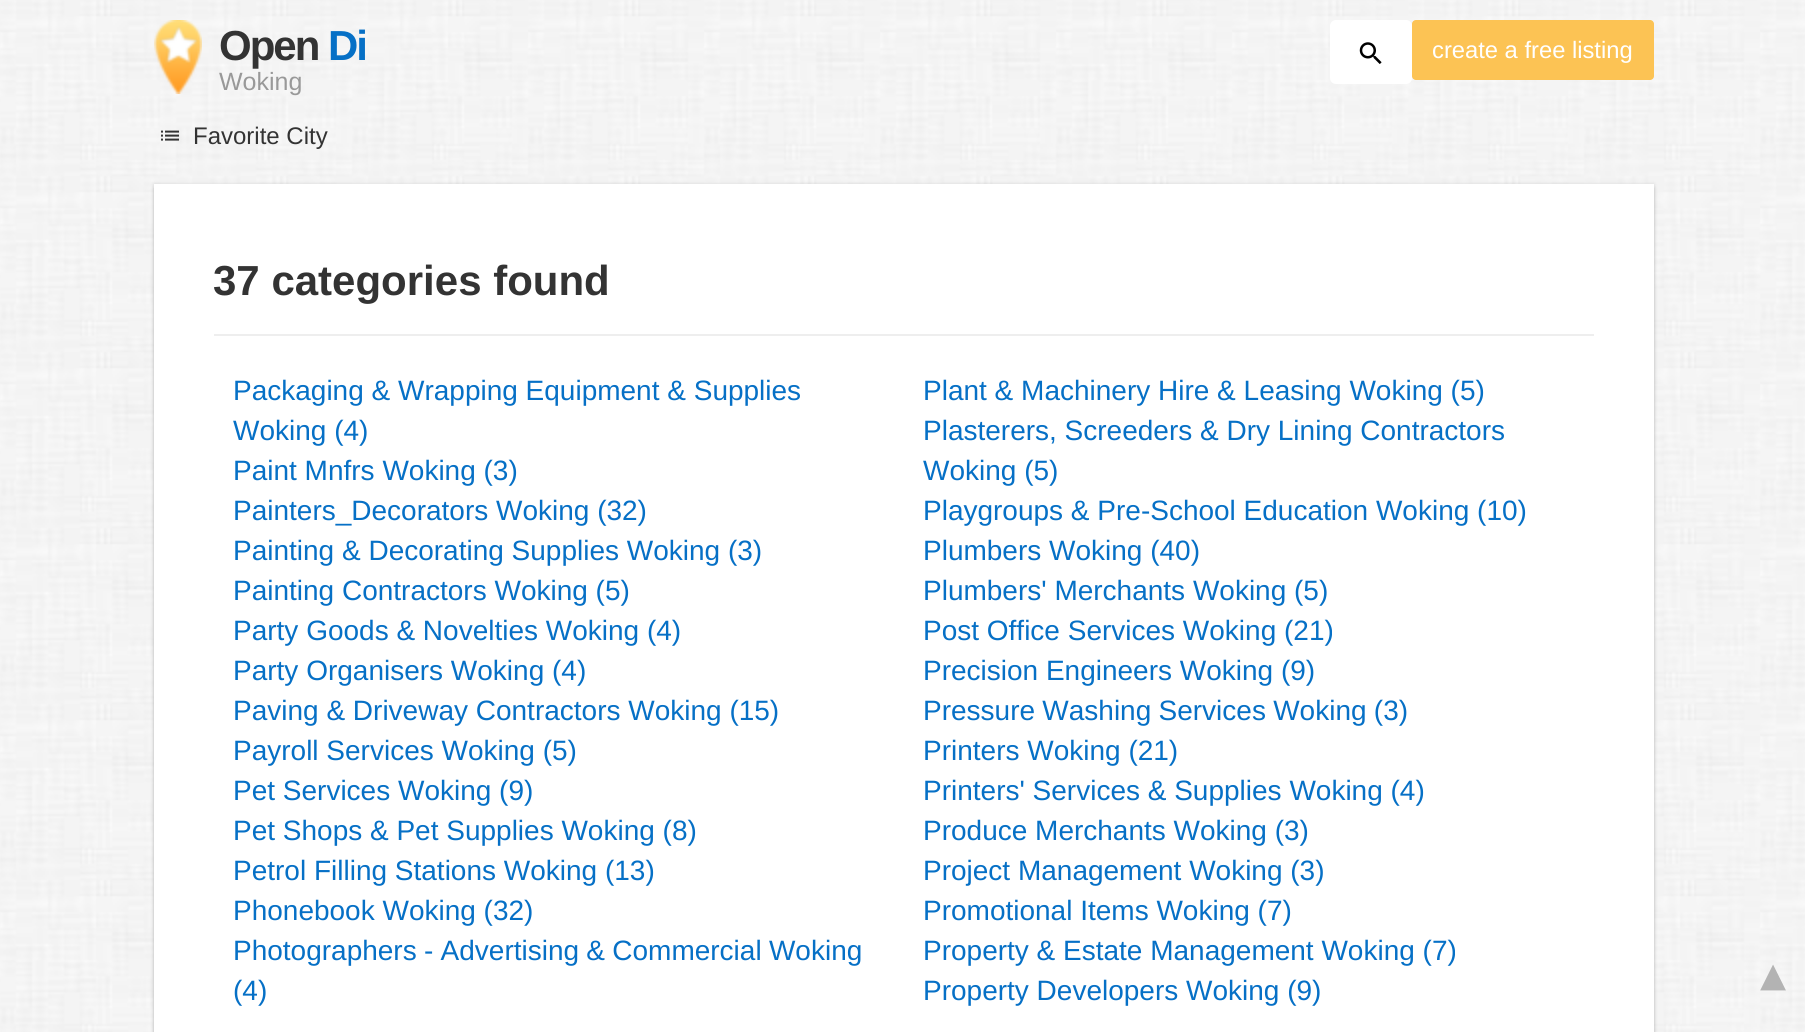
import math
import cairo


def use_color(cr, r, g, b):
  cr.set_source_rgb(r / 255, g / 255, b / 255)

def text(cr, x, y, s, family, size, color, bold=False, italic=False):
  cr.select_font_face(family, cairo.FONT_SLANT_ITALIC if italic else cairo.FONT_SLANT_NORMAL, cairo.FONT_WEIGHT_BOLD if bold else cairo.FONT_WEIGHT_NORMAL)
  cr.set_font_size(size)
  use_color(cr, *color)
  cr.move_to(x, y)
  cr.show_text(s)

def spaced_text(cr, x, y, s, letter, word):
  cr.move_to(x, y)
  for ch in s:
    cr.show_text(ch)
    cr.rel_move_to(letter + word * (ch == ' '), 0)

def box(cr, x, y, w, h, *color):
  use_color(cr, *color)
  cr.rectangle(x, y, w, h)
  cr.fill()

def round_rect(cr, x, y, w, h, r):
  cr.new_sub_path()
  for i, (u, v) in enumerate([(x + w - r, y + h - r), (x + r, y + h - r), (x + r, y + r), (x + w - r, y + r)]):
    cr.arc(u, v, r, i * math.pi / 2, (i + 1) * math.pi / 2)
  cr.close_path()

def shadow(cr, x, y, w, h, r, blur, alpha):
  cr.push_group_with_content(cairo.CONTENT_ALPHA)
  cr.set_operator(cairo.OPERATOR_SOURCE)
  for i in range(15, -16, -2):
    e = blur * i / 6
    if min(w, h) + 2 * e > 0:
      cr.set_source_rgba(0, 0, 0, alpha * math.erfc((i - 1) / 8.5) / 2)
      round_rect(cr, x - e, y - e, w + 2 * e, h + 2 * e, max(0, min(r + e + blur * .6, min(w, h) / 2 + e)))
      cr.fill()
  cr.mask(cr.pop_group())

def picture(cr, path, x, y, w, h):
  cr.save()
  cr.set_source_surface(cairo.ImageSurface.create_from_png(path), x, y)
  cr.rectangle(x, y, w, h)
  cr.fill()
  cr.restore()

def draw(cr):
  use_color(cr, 255, 255, 255)
  cr.paint()
  picture(cr, "img_01.png", 0, 0, 1805, 1032)
  picture(cr, "img_02.png", 154, 20, 48, 74)
  use_color(cr, 255, 255, 255)
  round_rect(cr, 1330, 20, 82, 64, 6)
  cr.fill()
  picture(cr, "img_03.png", 1359, 42, 23, 22)
  use_color(cr, 252, 195, 84)
  round_rect(cr, 1412, 20, 242, 60, 4)
  cr.fill()
  picture(cr, "img_04.png", 161, 130, 18, 11)
  use_color(cr, 0, 0, 0)
  shadow(cr, 154, 184, 1500, 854, 0, 2, 0.12)
  shadow(cr, 154, 188, 1500, 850, 0, 2, 0.16)
  box(cr, 154, 184, 1500, 848, 255, 255, 255)
  box(cr, 214, 334, 1380, 2, 238, 238, 238)
  cr.select_font_face("Liberation Sans", cairo.FONT_SLANT_NORMAL, cairo.FONT_WEIGHT_BOLD)
  cr.set_font_size(42)
  use_color(cr, 51, 51, 51)
  spaced_text(cr, 219, 60, "Open", -2, 0)
  use_color(cr, 6, 112, 198)
  spaced_text(cr, 328, 60, "Di", -2, 0)
  text(cr, 219, 90, "Woking", "Liberation Sans", 25, (153, 153, 153))
  text(cr, 1432, 58, "create a free listing", "Liberation Sans", 23.75, (255, 255, 255))
  text(cr, 193, 144, "Favorite City", "Liberation Sans", 24, (51, 51, 51))
  text(cr, 213, 295, "37 categories found", "Liberation Sans", 42, (51, 51, 51), bold=True)
  text(cr, 233, 400, "Packaging & Wrapping Equipment & Supplies", "Liberation Sans", 28, (6, 112, 198))
  text(cr, 233, 440, "Woking (4)", "Liberation Sans", 28, (6, 112, 198))
  text(cr, 233, 480, "Paint Mnfrs Woking (3)", "Liberation Sans", 28, (6, 112, 198))
  text(cr, 233, 520, "Painters_Decorators Woking (32)", "Liberation Sans", 28, (6, 112, 198))
  text(cr, 233, 560, "Painting & Decorating Supplies Woking (3)", "Liberation Sans", 28, (6, 112, 198))
  text(cr, 233, 600, "Painting Contractors Woking (5)", "Liberation Sans", 28, (6, 112, 198))
  text(cr, 233, 640, "Party Goods & Novelties Woking (4)", "Liberation Sans", 28, (6, 112, 198))
  text(cr, 233, 680, "Party Organisers Woking (4)", "Liberation Sans", 28, (6, 112, 198))
  text(cr, 233, 720, "Paving & Driveway Contractors Woking (15)", "Liberation Sans", 28, (6, 112, 198))
  text(cr, 233, 760, "Payroll Services Woking (5)", "Liberation Sans", 28, (6, 112, 198))
  text(cr, 233, 800, "Pet Services Woking (9)", "Liberation Sans", 28, (6, 112, 198))
  text(cr, 233, 840, "Pet Shops & Pet Supplies Woking (8)", "Liberation Sans", 28, (6, 112, 198))
  text(cr, 233, 880, "Petrol Filling Stations Woking (13)", "Liberation Sans", 28, (6, 112, 198))
  text(cr, 233, 920, "Phonebook Woking (32)", "Liberation Sans", 28, (6, 112, 198))
  spaced_text(cr, 233, 960, "Photographers - Advertising & Commercial Woking", 0, -0.5)
  text(cr, 233, 1000, "(4)", "Liberation Sans", 28, (6, 112, 198))
  text(cr, 923, 400, "Plant & Machinery Hire & Leasing Woking (5)", "Liberation Sans", 28, (6, 112, 198))
  text(cr, 923, 440, "Plasterers, Screeders & Dry Lining Contractors", "Liberation Sans", 28, (6, 112, 198))
  text(cr, 923, 480, "Woking (5)", "Liberation Sans", 28, (6, 112, 198))
  text(cr, 923, 520, "Playgroups & Pre-School Education Woking (10)", "Liberation Sans", 28, (6, 112, 198))
  text(cr, 923, 560, "Plumbers Woking (40)", "Liberation Sans", 28, (6, 112, 198))
  text(cr, 923, 600, "Plumbers' Merchants Woking (5)", "Liberation Sans", 28, (6, 112, 198))
  text(cr, 923, 640, "Post Office Services Woking (21)", "Liberation Sans", 28, (6, 112, 198))
  text(cr, 923, 680, "Precision Engineers Woking (9)", "Liberation Sans", 28, (6, 112, 198))
  spaced_text(cr, 923, 720, "Pressure Washing Services Woking (3)", 0, -0.5)
  text(cr, 923, 760, "Printers Woking (21)", "Liberation Sans", 28, (6, 112, 198))
  text(cr, 923, 800, "Printers' Services & Supplies Woking (4)", "Liberation Sans", 28, (6, 112, 198))
  text(cr, 923, 840, "Produce Merchants Woking (3)", "Liberation Sans", 28, (6, 112, 198))
  text(cr, 923, 880, "Project Management Woking (3)", "Liberation Sans", 28, (6, 112, 198))
  text(cr, 923, 920, "Promotional Items Woking (7)", "Liberation Sans", 28, (6, 112, 198))
  text(cr, 923, 960, "Property & Estate Management Woking (7)", "Liberation Sans", 28, (6, 112, 198))
  text(cr, 923, 1000, "Property Developers Woking (9)", "Liberation Sans", 28, (6, 112, 198))
  text(cr, 1760, 991, "▴", "DejaVu Sans", 52, (179, 179, 179))


surface = cairo.ImageSurface(cairo.FORMAT_RGB24, 1805, 1032)
cr = cairo.Context(surface)
options = cairo.FontOptions()
options.set_hint_metrics(cairo.HINT_METRICS_OFF)
options.set_hint_style(cairo.HINT_STYLE_NONE)
cr.set_font_options(options)
cr.set_miter_limit(4)
draw(cr)
surface.write_to_png("out.png")
